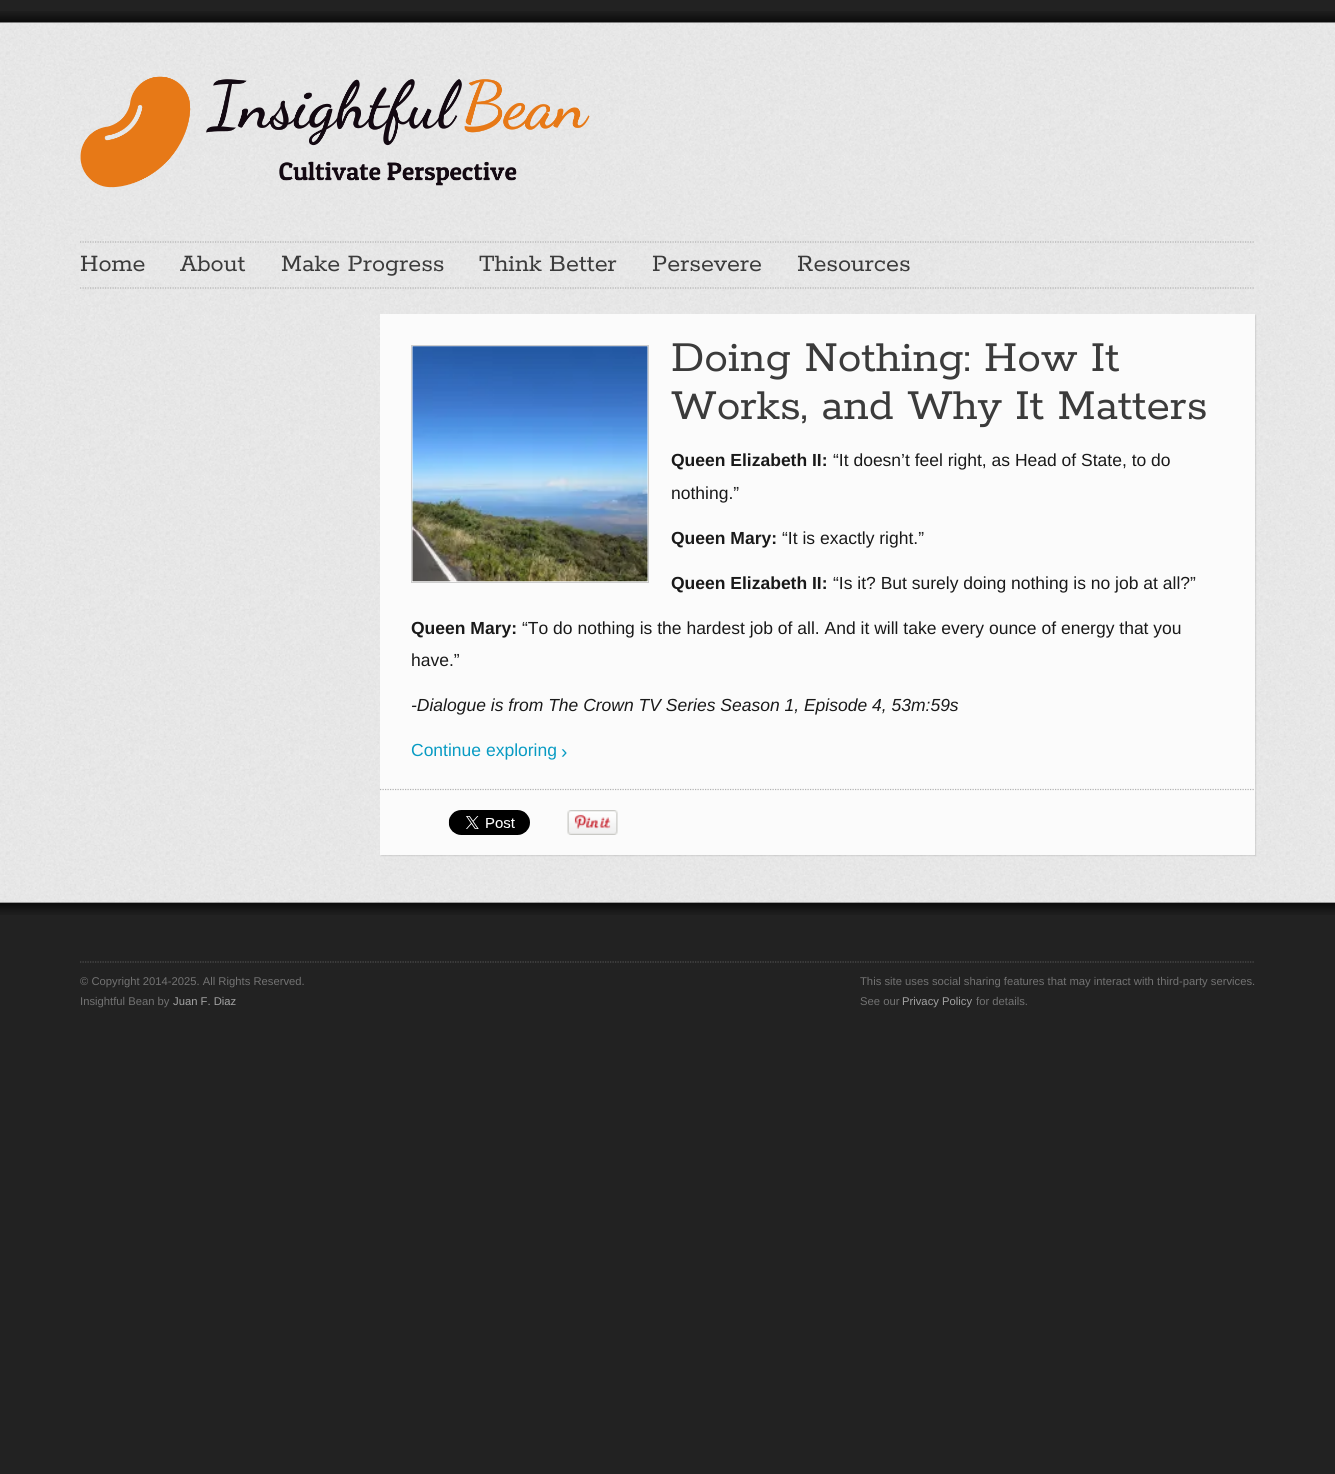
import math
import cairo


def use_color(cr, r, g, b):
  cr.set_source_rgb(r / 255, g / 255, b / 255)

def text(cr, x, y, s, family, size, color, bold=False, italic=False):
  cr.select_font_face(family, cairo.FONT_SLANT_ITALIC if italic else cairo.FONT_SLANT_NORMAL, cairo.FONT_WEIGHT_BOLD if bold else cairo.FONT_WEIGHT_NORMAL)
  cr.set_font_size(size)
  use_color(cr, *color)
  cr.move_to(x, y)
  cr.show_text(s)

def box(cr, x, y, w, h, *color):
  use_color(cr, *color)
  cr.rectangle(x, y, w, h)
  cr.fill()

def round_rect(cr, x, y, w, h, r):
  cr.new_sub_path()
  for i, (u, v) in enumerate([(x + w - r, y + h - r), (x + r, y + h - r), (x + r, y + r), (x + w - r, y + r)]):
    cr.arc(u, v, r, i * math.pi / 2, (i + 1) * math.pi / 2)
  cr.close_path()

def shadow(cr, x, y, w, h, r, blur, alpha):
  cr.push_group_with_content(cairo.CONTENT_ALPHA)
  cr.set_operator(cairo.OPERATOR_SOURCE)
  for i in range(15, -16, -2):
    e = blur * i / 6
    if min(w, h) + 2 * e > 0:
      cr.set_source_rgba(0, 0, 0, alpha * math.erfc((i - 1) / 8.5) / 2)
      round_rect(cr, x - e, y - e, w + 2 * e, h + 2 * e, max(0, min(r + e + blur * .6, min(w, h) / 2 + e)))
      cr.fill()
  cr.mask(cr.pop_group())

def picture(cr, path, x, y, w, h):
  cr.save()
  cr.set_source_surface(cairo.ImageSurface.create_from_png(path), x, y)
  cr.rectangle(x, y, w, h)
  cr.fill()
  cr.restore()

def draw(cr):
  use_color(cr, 34, 34, 34)
  cr.paint()
  picture(cr, "img_01.png", 0, 11, 1335, 12)
  box(cr, 0, 902, 1335, 1, 237, 237, 237)
  picture(cr, "img_02.png", 0, 22, 1335, 881)
  picture(cr, "img_03.png", 80, 76, 510, 112)
  cr.new_path()
  cr.move_to(80, 242)
  cr.line_to(1255, 242)
  use_color(cr, 178, 178, 178)
  cr.set_line_width(1.2)
  cr.set_dash([1.25, 1.25])
  cr.stroke()
  cr.new_path()
  cr.move_to(80, 288)
  cr.line_to(1255, 288)
  cr.stroke()
  use_color(cr, 0, 0, 0)
  shadow(cr, 381, 315, 875, 541, 0, 0.5, 0.1)
  box(cr, 380, 314, 875, 541, 251, 251, 251)
  cr.rectangle(411.5, 345.5, 237, 237)
  use_color(cr, 205, 205, 205)
  cr.set_line_width(1)
  cr.set_dash([])
  cr.stroke()
  picture(cr, "img_04.png", 412, 346, 236, 236)
  cr.new_path()
  cr.move_to(380, 789.5)
  cr.line_to(1255, 789.5)
  use_color(cr, 178, 178, 178)
  cr.set_line_width(1.2)
  cr.set_dash([1.25, 1.25])
  cr.stroke()
  picture(cr, "img_05.png", 448, 810, 82, 25)
  picture(cr, "img_06.png", 567, 810, 51, 25)
  picture(cr, "img_07.png", 0, 902, 1335, 13)
  cr.new_path()
  cr.move_to(80, 962)
  cr.line_to(1255, 962)
  use_color(cr, 80, 80, 80)
  cr.stroke()
  text(cr, 80, 271, "Home", "Rokkitt", 26.25, (59, 59, 59))
  text(cr, 180, 271, "About", "Rokkitt", 26.25, (59, 59, 59))
  text(cr, 281, 271, "Make Progress", "Rokkitt", 26.25, (59, 59, 59))
  text(cr, 479, 271, "Think Better", "Rokkitt", 26.25, (59, 59, 59))
  text(cr, 652, 271, "Persevere", "Rokkitt", 26.25, (59, 59, 59))
  text(cr, 797, 271, "Resources", "Rokkitt", 26.25, (59, 59, 59))
  text(cr, 671, 371, "Doing Nothing: How It", "Rokkitt", 47.5, (59, 59, 59))
  text(cr, 671, 419, "Works, and Why It Matters", "Rokkitt", 47.5, (59, 59, 59))
  text(cr, 671, 466, "Queen Elizabeth II:", "Liberation Sans", 17.5, (25, 25, 25), bold=True)
  text(cr, 833, 466, "“It doesn’t feel right, as Head of State, to do", "Liberation Sans", 17.5, (25, 25, 25))
  text(cr, 671, 499, "nothing.”", "Liberation Sans", 17.5, (25, 25, 25))
  text(cr, 671, 544, "Queen Mary:", "Liberation Sans", 17.5, (25, 25, 25), bold=True)
  text(cr, 782, 544, "“It is exactly right.”", "Liberation Sans", 17.5, (25, 25, 25))
  text(cr, 671, 589, "Queen Elizabeth II:", "Liberation Sans", 17.5, (25, 25, 25), bold=True)
  text(cr, 833, 589, "“Is it? But surely doing nothing is no job at all?”", "Liberation Sans", 17.5, (25, 25, 25))
  text(cr, 411, 634, "Queen Mary:", "Liberation Sans", 17.5, (25, 25, 25), bold=True)
  text(cr, 522, 634, "“To do nothing is the hardest job of all. And it will take every ounce of energy that you", "Liberation Sans", 17.5, (25, 25, 25))
  text(cr, 411, 666, "have.”", "Liberation Sans", 17.5, (25, 25, 25))
  text(cr, 411, 711, "-Dialogue is from The Crown TV Series Season 1, Episode 4, 53m:59s", "Liberation Sans", 17.5, (25, 25, 25), italic=True)
  text(cr, 411, 756, "Continue exploring", "Liberation Sans", 17.5, (8, 155, 195))
  text(cr, 561, 758, "›", "Liberation Sans", 19, (8, 155, 195))
  text(cr, 80, 985, "© Copyright 2014-2025. All Rights Reserved.", "Liberation Sans", 11.25, (114, 114, 114))
  text(cr, 80, 1005, "Insightful Bean by", "Liberation Sans", 11.25, (114, 114, 114))
  text(cr, 173, 1005, "Juan F. Diaz", "Liberation Sans", 11.25, (162, 162, 162))
  text(cr, 860, 985, "This site uses social sharing features that may interact with third-party services.", "Liberation Sans", 11.25, (114, 114, 114))
  text(cr, 860, 1005, "See our", "Liberation Sans", 11.25, (114, 114, 114))
  text(cr, 902, 1005, "Privacy Policy", "Liberation Sans", 11.25, (162, 162, 162))
  text(cr, 976, 1005, "for details.", "Liberation Sans", 11.25, (114, 114, 114))


surface = cairo.ImageSurface(cairo.FORMAT_RGB24, 1335, 1474)
cr = cairo.Context(surface)
options = cairo.FontOptions()
options.set_hint_metrics(cairo.HINT_METRICS_OFF)
options.set_hint_style(cairo.HINT_STYLE_NONE)
cr.set_font_options(options)
cr.set_miter_limit(4)
draw(cr)
surface.write_to_png("out.png")
